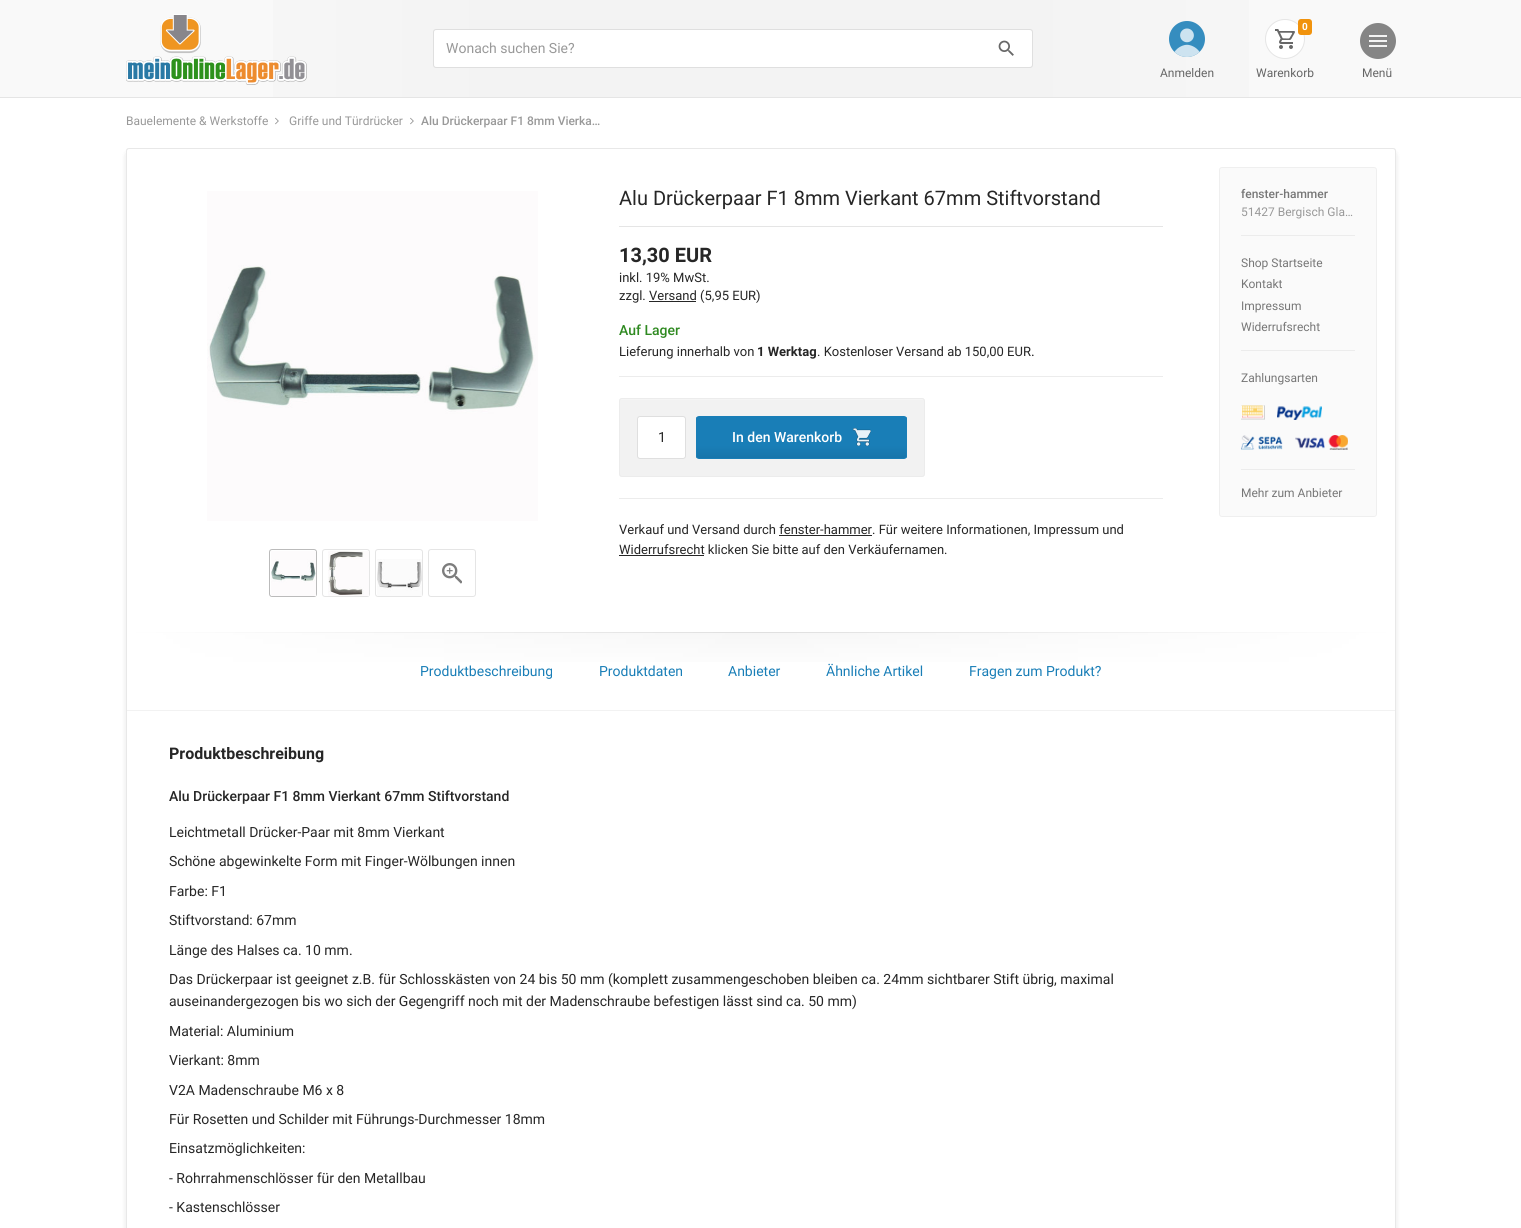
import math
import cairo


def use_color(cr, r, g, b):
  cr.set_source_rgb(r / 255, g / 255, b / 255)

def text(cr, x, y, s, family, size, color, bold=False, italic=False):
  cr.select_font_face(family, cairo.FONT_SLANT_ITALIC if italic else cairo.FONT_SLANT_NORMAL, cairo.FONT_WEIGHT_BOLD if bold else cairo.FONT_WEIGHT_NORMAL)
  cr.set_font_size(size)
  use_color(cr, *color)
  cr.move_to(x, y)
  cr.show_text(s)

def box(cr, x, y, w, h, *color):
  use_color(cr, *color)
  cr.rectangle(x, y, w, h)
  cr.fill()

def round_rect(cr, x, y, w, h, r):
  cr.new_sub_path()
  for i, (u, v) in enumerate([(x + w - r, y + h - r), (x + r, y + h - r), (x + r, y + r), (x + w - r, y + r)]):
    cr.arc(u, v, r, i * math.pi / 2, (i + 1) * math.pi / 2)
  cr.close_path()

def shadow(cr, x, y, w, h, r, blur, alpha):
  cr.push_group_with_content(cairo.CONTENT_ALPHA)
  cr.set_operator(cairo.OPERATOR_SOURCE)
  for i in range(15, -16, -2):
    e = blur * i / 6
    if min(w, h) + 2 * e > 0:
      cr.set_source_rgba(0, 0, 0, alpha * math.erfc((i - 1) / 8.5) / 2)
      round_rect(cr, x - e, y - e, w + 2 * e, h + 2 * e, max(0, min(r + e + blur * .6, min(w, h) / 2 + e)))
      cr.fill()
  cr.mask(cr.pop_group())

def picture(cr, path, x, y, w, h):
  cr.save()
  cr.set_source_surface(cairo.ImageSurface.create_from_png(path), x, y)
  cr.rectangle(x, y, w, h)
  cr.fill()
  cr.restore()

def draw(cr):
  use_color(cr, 255, 255, 255)
  cr.paint()
  box(cr, 0, 0, 1521, 97, 249, 249, 249)
  box(cr, 0, 97, 1521, 1, 229, 229, 229)
  gradient = cairo.LinearGradient(111, 49, 1411, 48)
  gradient.add_color_stop_rgba(0, 0.976, 0.976, 0.976, 1)
  gradient.add_color_stop_rgba(0.3, 0.953, 0.953, 0.953, 1)
  gradient.add_color_stop_rgba(0.7, 0.953, 0.953, 0.953, 1)
  gradient.add_color_stop_rgba(1, 0.976, 0.976, 0.976, 1)
  cr.set_source(gradient)
  cr.rectangle(273, 0, 976, 97)
  cr.fill()
  picture(cr, "img_01.png", 126, 14, 181, 71)
  round_rect(cr, 433.5, 29.5, 599, 38, 2.5)
  use_color(cr, 223, 223, 223)
  cr.set_line_width(1)
  cr.stroke()
  use_color(cr, 255, 255, 255)
  cr.new_path()
  cr.move_to(437, 30.5)
  cr.line_to(979.5, 30.5)
  cr.line_to(979.5, 66.5)
  cr.line_to(437, 66.5)
  cr.curve_to(435.5, 66.5, 434.5, 65.5, 434.5, 64)
  cr.line_to(434.5, 33)
  cr.curve_to(434.5, 31.5, 435.5, 30.5, 437, 30.5)
  cr.close_path()
  cr.fill_preserve()
  cr.stroke()
  cr.new_path()
  cr.move_to(979.5, 30.5)
  cr.line_to(1029, 30.5)
  cr.curve_to(1030.5, 30.5, 1031.5, 31.5, 1031.5, 33)
  cr.line_to(1031.5, 64)
  cr.curve_to(1031.5, 65.5, 1030.5, 66.5, 1029, 66.5)
  cr.line_to(979.5, 66.5)
  cr.close_path()
  cr.fill_preserve()
  cr.stroke()
  picture(cr, "img_02.png", 998, 40, 16, 16)
  picture(cr, "img_03.png", 1169, 21, 36, 36)
  cr.arc(1285, 39, 19.5, 0, 2 * math.pi)
  cr.fill_preserve()
  use_color(cr, 229, 229, 229)
  cr.stroke()
  use_color(cr, 241, 147, 13)
  round_rect(cr, 1298, 19, 14, 16, 3)
  cr.fill()
  picture(cr, "img_04.png", 1275, 29, 20, 20)
  use_color(cr, 133, 133, 133)
  cr.arc(1378, 41, 18, 0, 2 * math.pi)
  cr.fill()
  picture(cr, "img_05.png", 1369, 35, 18, 12)
  picture(cr, "img_06.png", 275, 117, 4, 8)
  picture(cr, "img_06.png", 410, 117, 4, 8)
  cr.save()
  cr.set_fill_rule(cairo.FILL_RULE_EVEN_ODD)
  cr.new_path()
  cr.move_to(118, 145)
  cr.line_to(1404, 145)
  cr.line_to(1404, 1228)
  cr.line_to(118, 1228)
  cr.close_path()
  cr.move_to(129, 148)
  cr.line_to(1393, 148)
  cr.curve_to(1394.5, 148, 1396, 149.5, 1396, 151)
  cr.line_to(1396, 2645)
  cr.line_to(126, 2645)
  cr.line_to(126, 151)
  cr.curve_to(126, 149.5, 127.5, 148, 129, 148)
  cr.close_path()
  cr.clip()
  use_color(cr, 0, 0, 0)
  shadow(cr, 124, 151, 1274, 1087, 5, 1.5, 0.05)
  cr.restore()
  use_color(cr, 232, 232, 232)
  cr.set_fill_rule(cairo.FILL_RULE_EVEN_ODD)
  cr.new_path()
  cr.move_to(129, 148)
  cr.line_to(1393, 148)
  cr.curve_to(1395, 148, 1396, 149, 1396, 151)
  cr.line_to(1396, 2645)
  cr.line_to(126, 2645)
  cr.line_to(126, 151)
  cr.curve_to(126, 149, 127, 148, 129, 148)
  cr.close_path()
  cr.move_to(129, 149)
  cr.line_to(1393, 149)
  cr.curve_to(1394, 149, 1395, 150, 1395, 151)
  cr.line_to(1395, 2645)
  cr.line_to(127, 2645)
  cr.line_to(127, 151)
  cr.curve_to(127, 150, 128, 149, 129, 149)
  cr.close_path()
  cr.fill()
  picture(cr, "img_07.png", 207, 191, 331, 330)
  round_rect(cr, 269.5, 549.5, 47, 47, 2.5)
  use_color(cr, 187, 187, 187)
  cr.stroke()
  picture(cr, "img_08.png", 271, 551, 45, 45)
  round_rect(cr, 322.5, 549.5, 47, 47, 2.5)
  use_color(cr, 229, 229, 229)
  cr.stroke()
  picture(cr, "img_09.png", 328, 551, 41, 45)
  round_rect(cr, 375.5, 549.5, 47, 47, 2.5)
  cr.stroke()
  picture(cr, "img_10.png", 377, 559, 45, 37)
  round_rect(cr, 428.5, 549.5, 47, 47, 2.5)
  cr.stroke()
  picture(cr, "img_11.png", 442, 563, 20, 21)
  box(cr, 619, 226, 544, 1, 229, 229, 229)
  box(cr, 649, 301, 47, 1, 38, 38, 38)
  box(cr, 619, 498, 544, 1, 236, 236, 236)
  box(cr, 619, 376, 544, 1, 236, 236, 236)
  use_color(cr, 242, 242, 242)
  round_rect(cr, 619, 398, 306, 79, 3)
  cr.fill()
  gradient = cairo.LinearGradient(772, 399, 772, 476)
  gradient.add_color_stop_rgba(0, 1, 1, 1, 0.2)
  gradient.add_color_stop_rgba(1, 1, 1, 1, 0)
  cr.set_source(gradient)
  cr.rectangle(620, 399, 304, 1)
  cr.fill()
  round_rect(cr, 619.5, 398.5, 305, 78, 2.5)
  use_color(cr, 236, 236, 236)
  cr.stroke()
  use_color(cr, 255, 255, 255)
  round_rect(cr, 637.5, 416.5, 48, 42, 2.5)
  cr.fill_preserve()
  use_color(cr, 223, 223, 223)
  cr.stroke()
  cr.save()
  cr.set_fill_rule(cairo.FILL_RULE_WINDING)
  round_rect(cr, 696, 416, 211, 43, 3)
  cr.clip()
  gradient = cairo.LinearGradient(802, 458, 802, 417)
  gradient.add_color_stop_rgba(0, 0.09, 0.459, 0.667, 1)
  gradient.add_color_stop_rgba(0.3, 0.098, 0.494, 0.718, 1)
  cr.set_source(gradient)
  cr.rectangle(696, 417, 211, 41)
  cr.fill()
  cr.restore()
  round_rect(cr, 696.5, 416.5, 210, 42, 2.5)
  use_color(cr, 25, 126, 183)
  cr.stroke()
  picture(cr, "img_12.png", 853, 428, 18, 18)
  box(cr, 779, 535, 93, 1, 38, 38, 38)
  box(cr, 619, 555, 85, 1, 38, 38, 38)
  use_color(cr, 250, 250, 250)
  round_rect(cr, 1219.5, 167.5, 157, 349, 2.5)
  cr.fill_preserve()
  use_color(cr, 239, 239, 239)
  cr.stroke()
  box(cr, 1241, 235, 114, 1, 236, 236, 236)
  box(cr, 1241, 350, 114, 1, 236, 236, 236)
  picture(cr, "img_13.png", 1241, 405, 24, 15)
  picture(cr, "img_14.png", 1277, 406, 45, 14)
  picture(cr, "img_15.png", 1241, 435, 42, 15)
  picture(cr, "img_16.png", 1295, 435, 53, 15)
  box(cr, 1241, 469, 114, 1, 236, 236, 236)
  gradient = cairo.LinearGradient(761, 633, 761, 674)
  gradient.add_color_stop_rgba(0, 0.965, 0.965, 0.965, 1)
  gradient.add_color_stop_rgba(0.98, 1, 1, 1, 1)
  cr.set_source(gradient)
  cr.rectangle(131, 633, 1260, 29)
  cr.fill()
  box(cr, 127, 632, 1268, 1, 223, 223, 223)
  gradient = cairo.LinearGradient(127, 654, 1395, 654)
  gradient.add_color_stop_rgba(0, 1, 1, 1, 1)
  gradient.add_color_stop_rgba(0.5, 1, 1, 1, 0)
  gradient.add_color_stop_rgba(1, 1, 1, 1, 1)
  cr.set_source(gradient)
  cr.rectangle(127, 632, 1268, 30)
  cr.fill()
  box(cr, 127, 710, 1268, 1, 242, 242, 242)
  text(cr, 446, 53, "Wonach suchen Sie?", "Roboto", 14, (153, 153, 153))
  text(cr, 1160, 77, "Anmelden", "Roboto", 12, (102, 102, 102))
  text(cr, 1302, 30, "0", "Roboto", 10, (255, 255, 255), bold=True)
  text(cr, 1256, 77, "Warenkorb", "Roboto", 12, (102, 102, 102))
  text(cr, 1362, 77, "Menü", "Roboto", 12, (102, 102, 102))
  text(cr, 126, 125, "Bauelemente & Werkstoffe", "Roboto", 12, (153, 153, 153))
  text(cr, 289, 125, "Griffe und Türdrücker", "Roboto", 12, (153, 153, 153))
  text(cr, 421, 125, "Alu Drückerpaar F1 8mm Vierka…", "Roboto Medium", 12, (153, 153, 153))
  text(cr, 619, 205, "Alu Drückerpaar F1 8mm Vierkant 67mm Stiftvorstand", "Roboto", 20, (38, 38, 38))
  text(cr, 619, 262, "13,30 EUR", "Roboto", 20, (38, 38, 38), bold=True)
  text(cr, 619, 282, "inkl. 19% MwSt.", "Roboto", 13, (38, 38, 38))
  text(cr, 619, 300, "zzgl. Versand (5,95 EUR)", "Roboto", 13, (38, 38, 38))
  text(cr, 619, 335, "Auf Lager", "Roboto Medium", 14, (47, 138, 33))
  text(cr, 619, 356, "Lieferung innerhalb von", "Roboto", 13, (38, 38, 38))
  text(cr, 757, 356, "1 Werktag", "Roboto", 13, (38, 38, 38), bold=True)
  text(cr, 817, 356, ". Kostenloser Versand ab 150,00 EUR", "Roboto", 13, (38, 38, 38))
  text(cr, 1031, 356, ".", "Roboto", 14, (38, 38, 38))
  text(cr, 658, 442, "1", "Roboto", 14, (38, 38, 38))
  text(cr, 732, 442, "In den Warenkorb", "Roboto Medium", 14, (255, 255, 255))
  text(cr, 619, 534, "Verkauf und Versand durch fenster-hammer. Für weitere Informationen, Impressum und", "Roboto", 13, (38, 38, 38))
  text(cr, 619, 554, "Widerrufsrecht klicken Sie bitte auf den Verkäufernamen.", "Roboto", 13, (38, 38, 38))
  text(cr, 1241, 198, "fenster-hammer", "Roboto Medium", 12, (119, 119, 119))
  text(cr, 1241, 216, "51427 Bergisch Gla…", "Roboto", 12, (153, 153, 153))
  text(cr, 1241, 267, "Shop Startseite", "Roboto", 12, (119, 119, 119))
  text(cr, 1241, 288, "Kontakt", "Roboto", 12, (119, 119, 119))
  text(cr, 1241, 310, "Impressum", "Roboto", 12, (119, 119, 119))
  text(cr, 1241, 331, "Widerrufsrecht", "Roboto", 12, (119, 119, 119))
  text(cr, 1241, 382, "Zahlungsarten", "Roboto", 12, (119, 119, 119))
  text(cr, 1241, 497, "Mehr zum Anbieter", "Roboto", 12, (119, 119, 119))
  text(cr, 420, 676, "Produktbeschreibung", "Roboto", 14, (25, 126, 183))
  text(cr, 599, 676, "Produktdaten", "Roboto", 14, (25, 126, 183))
  text(cr, 728, 676, "Anbieter", "Roboto", 14, (25, 126, 183))
  text(cr, 826, 676, "Ähnliche Artikel", "Roboto", 14, (25, 126, 183))
  text(cr, 969, 676, "Fragen zum Produkt?", "Roboto", 14, (25, 126, 183))
  text(cr, 169, 759, "Produktbeschreibung", "Roboto", 16, (38, 38, 38), bold=True)
  text(cr, 169, 801, "Alu Drückerpaar F1 8mm Vierkant 67mm Stiftvorstand", "Roboto Medium", 14, (38, 38, 38))
  text(cr, 169, 837, "Leichtmetall Drücker-Paar mit 8mm Vierkant", "Roboto", 14, (38, 38, 38))
  text(cr, 169, 866, "Schöne abgewinkelte Form mit Finger-Wölbungen innen", "Roboto", 14, (38, 38, 38))
  text(cr, 169, 896, "Farbe: F1", "Roboto", 14, (38, 38, 38))
  text(cr, 169, 925, "Stiftvorstand: 67mm", "Roboto", 14, (38, 38, 38))
  text(cr, 169, 955, "Länge des Halses ca. 10 mm.", "Roboto", 14, (38, 38, 38))
  text(cr, 169, 984, "Das Drückerpaar ist geeignet z.B. für Schlosskästen von 24 bis 50 mm (komplett zusammengeschoben bleiben ca. 24mm sichtbarer Stift übrig, maximal", "Roboto", 14, (38, 38, 38))
  text(cr, 169, 1006, "auseinandergezogen bis wo sich der Gegengriff noch mit der Madenschraube befestigen lässt sind ca. 50 mm)", "Roboto", 14, (38, 38, 38))
  text(cr, 169, 1036, "Material: Aluminium", "Roboto", 14, (38, 38, 38))
  text(cr, 169, 1065, "Vierkant: 8mm", "Roboto", 14, (38, 38, 38))
  text(cr, 169, 1095, "V2A Madenschraube M6 x 8", "Roboto", 14, (38, 38, 38))
  text(cr, 169, 1124, "Für Rosetten und Schilder mit Führungs-Durchmesser 18mm", "Roboto", 14, (38, 38, 38))
  text(cr, 169, 1153, "Einsatzmöglichkeiten:", "Roboto", 14, (38, 38, 38))
  text(cr, 169, 1183, "- Rohrrahmenschlösser für den Metallbau", "Roboto", 14, (38, 38, 38))
  text(cr, 169, 1212, "- Kastenschlösser", "Roboto", 14, (38, 38, 38))


surface = cairo.ImageSurface(cairo.FORMAT_RGB24, 1521, 1228)
cr = cairo.Context(surface)
options = cairo.FontOptions()
options.set_hint_metrics(cairo.HINT_METRICS_OFF)
options.set_hint_style(cairo.HINT_STYLE_NONE)
cr.set_font_options(options)
cr.set_miter_limit(4)
draw(cr)
surface.write_to_png("out.png")
